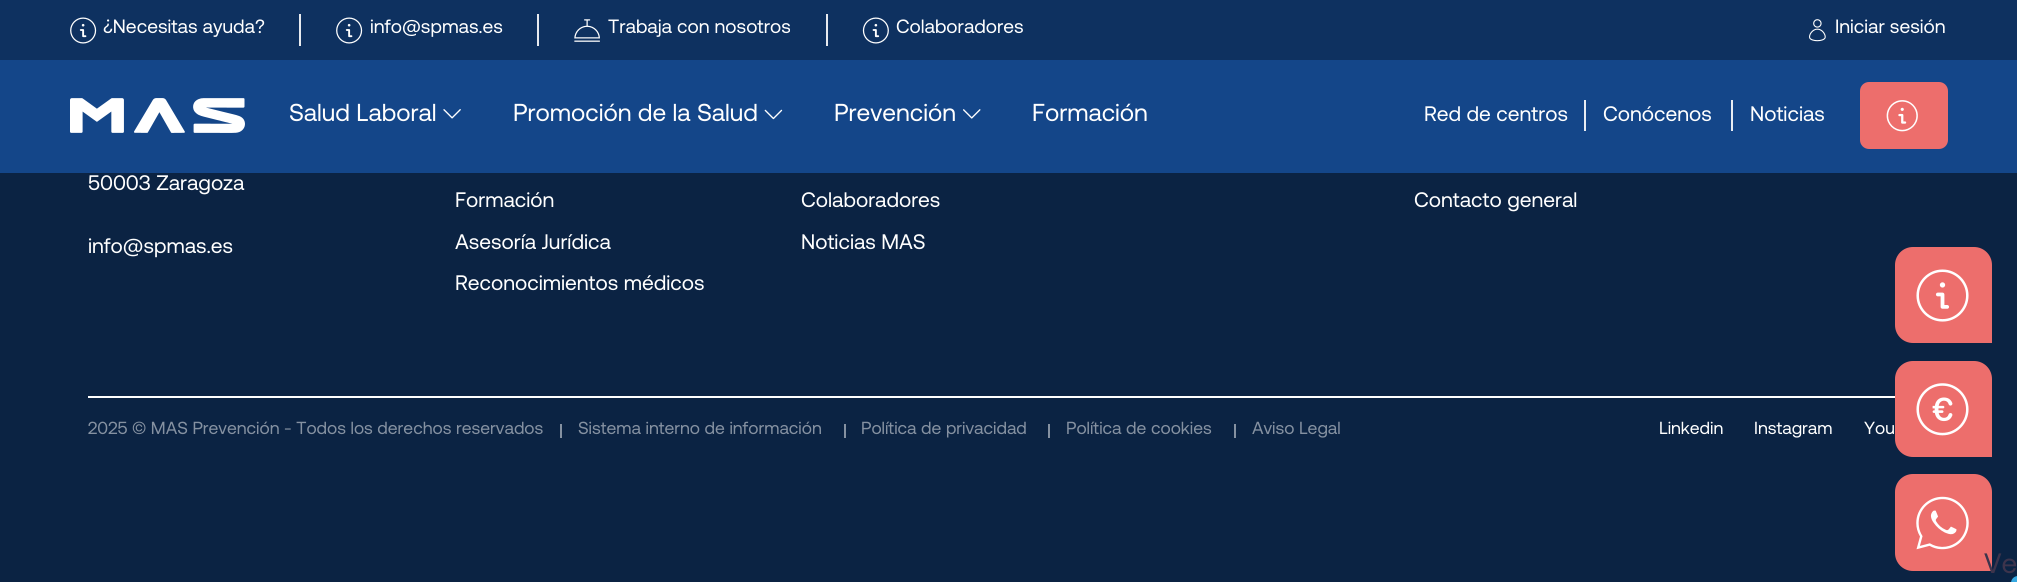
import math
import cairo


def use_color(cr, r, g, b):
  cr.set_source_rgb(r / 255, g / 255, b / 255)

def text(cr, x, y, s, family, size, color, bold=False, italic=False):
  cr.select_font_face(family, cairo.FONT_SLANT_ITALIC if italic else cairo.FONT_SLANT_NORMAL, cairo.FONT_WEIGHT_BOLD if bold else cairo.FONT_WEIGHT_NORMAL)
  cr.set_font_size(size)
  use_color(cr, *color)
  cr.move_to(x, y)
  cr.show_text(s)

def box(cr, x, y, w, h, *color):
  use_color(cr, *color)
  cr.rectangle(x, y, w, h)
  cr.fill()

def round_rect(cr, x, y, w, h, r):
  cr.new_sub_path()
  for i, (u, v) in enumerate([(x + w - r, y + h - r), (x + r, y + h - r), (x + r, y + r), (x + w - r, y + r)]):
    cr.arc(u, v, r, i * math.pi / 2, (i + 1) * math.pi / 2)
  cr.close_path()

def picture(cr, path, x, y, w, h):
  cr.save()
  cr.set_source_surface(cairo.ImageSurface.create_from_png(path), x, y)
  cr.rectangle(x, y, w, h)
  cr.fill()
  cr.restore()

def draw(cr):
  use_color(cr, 11, 35, 67)
  cr.paint()
  box(cr, 0, 0, 2017, 60, 14, 49, 96)
  picture(cr, "img_01.png", 70, 17, 27, 27)
  box(cr, 299, 14, 2, 32, 231, 234, 239)
  picture(cr, "img_01.png", 336, 17, 27, 27)
  box(cr, 537, 14, 2, 32, 231, 234, 239)
  picture(cr, "img_02.png", 574, 19, 26, 23)
  box(cr, 826, 14, 2, 32, 231, 234, 239)
  picture(cr, "img_03.png", 862, 17, 27, 27)
  picture(cr, "img_04.png", 1809, 19, 17, 23)
  box(cr, 0, 60, 2017, 113, 20, 70, 137)
  picture(cr, "img_05.png", 70, 98, 175, 35)
  picture(cr, "img_06.png", 443, 109, 18, 10)
  picture(cr, "img_07.png", 764, 109, 19, 11)
  picture(cr, "img_08.png", 963, 109, 18, 10)
  box(cr, 1584, 100, 2, 31, 232, 237, 243)
  box(cr, 1731, 100, 2, 31, 232, 237, 243)
  use_color(cr, 237, 110, 108)
  round_rect(cr, 1860, 82, 88, 67, 9)
  cr.fill()
  picture(cr, "img_09.png", 1886, 100, 32, 32)
  box(cr, 88, 396, 1807, 2, 255, 255, 255)
  box(cr, 560, 424, 2, 14, 133, 145, 161)
  box(cr, 844, 424, 2, 14, 133, 145, 161)
  box(cr, 1048, 424, 2, 14, 133, 145, 161)
  box(cr, 1234, 424, 2, 14, 133, 145, 161)
  use_color(cr, 237, 110, 108)
  cr.new_path()
  cr.move_to(1913, 247)
  cr.line_to(1974, 247)
  cr.curve_to(1984, 247, 1992, 255, 1992, 265)
  cr.line_to(1992, 343)
  cr.line_to(1913, 343)
  cr.curve_to(1903, 343, 1895, 335, 1895, 325)
  cr.line_to(1895, 265)
  cr.curve_to(1895, 255, 1903, 247, 1913, 247)
  cr.close_path()
  cr.fill()
  picture(cr, "img_10.png", 1916, 269, 53, 53)
  cr.new_path()
  cr.move_to(1913, 361)
  cr.line_to(1974, 361)
  cr.curve_to(1984, 361, 1992, 369, 1992, 379)
  cr.line_to(1992, 457)
  cr.line_to(1913, 457)
  cr.curve_to(1903, 457, 1895, 449, 1895, 439)
  cr.line_to(1895, 379)
  cr.curve_to(1895, 369, 1903, 361, 1913, 361)
  cr.close_path()
  cr.fill()
  picture(cr, "img_11.png", 1916, 383, 53, 53)
  cr.new_path()
  cr.move_to(1913, 474)
  cr.line_to(1974, 474)
  cr.curve_to(1984, 474, 1992, 482, 1992, 492)
  cr.line_to(1992, 571)
  cr.line_to(1913, 571)
  cr.curve_to(1903, 571, 1895, 563, 1895, 553)
  cr.line_to(1895, 492)
  cr.curve_to(1895, 482, 1903, 474, 1913, 474)
  cr.close_path()
  cr.fill()
  picture(cr, "img_12.png", 1916, 496, 53, 54)
  use_color(cr, 54, 169, 225)
  round_rect(cr, 2011, 576, 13, 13, 7)
  cr.fill()
  text(cr, 103, 33, "¿Necesitas ayuda?", "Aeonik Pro", 19.25, (255, 255, 255))
  text(cr, 370, 33, "info@spmas.es", "Aeonik Pro", 19.25, (255, 255, 255))
  text(cr, 608, 33, "Trabaja con nosotros", "Aeonik Pro", 19.25, (255, 255, 255))
  text(cr, 896, 33, "Colaboradores", "Aeonik Pro", 19.25, (255, 255, 255))
  text(cr, 1835, 33, "Iniciar sesión", "Aeonik Pro", 19.25, (255, 255, 255))
  text(cr, 289, 121, "Salud Laboral", "Aeonik Pro", 24.5, (255, 255, 255))
  text(cr, 513, 121, "Promoción de la Salud", "Aeonik Pro", 24.5, (255, 255, 255))
  text(cr, 834, 121, "Prevención", "Aeonik Pro", 24.5, (255, 255, 255))
  text(cr, 1032, 121, "Formación", "Aeonik Pro", 24.5, (255, 255, 255))
  text(cr, 1424, 121, "Red de centros", "Aeonik Pro", 21, (255, 255, 255))
  text(cr, 1603, 121, "Conócenos", "Aeonik Pro", 21, (255, 255, 255))
  text(cr, 1750, 121, "Noticias", "Aeonik Pro", 21, (255, 255, 255))
  text(cr, 88, 190, "50003 Zaragoza", "Aeonik Pro", 21, (255, 255, 255))
  text(cr, 88, 253, "info@spmas.es", "Aeonik Pro", 21, (255, 255, 255))
  text(cr, 455, 207, "Formación", "Aeonik Pro", 21, (255, 255, 255))
  text(cr, 455, 249, "Asesoría Jurídica", "Aeonik Pro", 21, (255, 255, 255))
  text(cr, 455, 290, "Reconocimientos médicos", "Aeonik Pro", 21, (255, 255, 255))
  text(cr, 801, 207, "Colaboradores", "Aeonik Pro", 21, (255, 255, 255))
  text(cr, 801, 249, "Noticias MAS", "Aeonik Pro", 21, (255, 255, 255))
  text(cr, 1414, 207, "Contacto general", "Aeonik Pro", 21, (255, 255, 255))
  text(cr, 88, 434, "2025 © MAS Prevención - Todos los derechos reservados", "Aeonik Pro", 17.5, (133, 145, 161))
  text(cr, 578, 434, "Sistema interno de información", "Aeonik Pro", 17.5, (133, 145, 161))
  text(cr, 861, 434, "Política de privacidad", "Aeonik Pro", 17.5, (133, 145, 161))
  text(cr, 1066, 434, "Política de cookies", "Aeonik Pro", 17.5, (133, 145, 161))
  text(cr, 1252, 434, "Aviso Legal", "Aeonik Pro", 17.5, (133, 145, 161))
  text(cr, 1659, 434, "Linkedin", "Aeonik Pro", 17.5, (255, 255, 255))
  text(cr, 1754, 434, "Instagram", "Aeonik Pro", 17.5, (255, 255, 255))
  text(cr, 1864, 434, "You", "Aeonik Pro", 17.5, (255, 255, 255))
  text(cr, 1984, 573, "Ve", "Aeonik Pro", 28, (61, 52, 76))


surface = cairo.ImageSurface(cairo.FORMAT_RGB24, 2017, 582)
cr = cairo.Context(surface)
options = cairo.FontOptions()
options.set_hint_metrics(cairo.HINT_METRICS_OFF)
options.set_hint_style(cairo.HINT_STYLE_NONE)
cr.set_font_options(options)
cr.set_miter_limit(4)
draw(cr)
surface.write_to_png("out.png")
